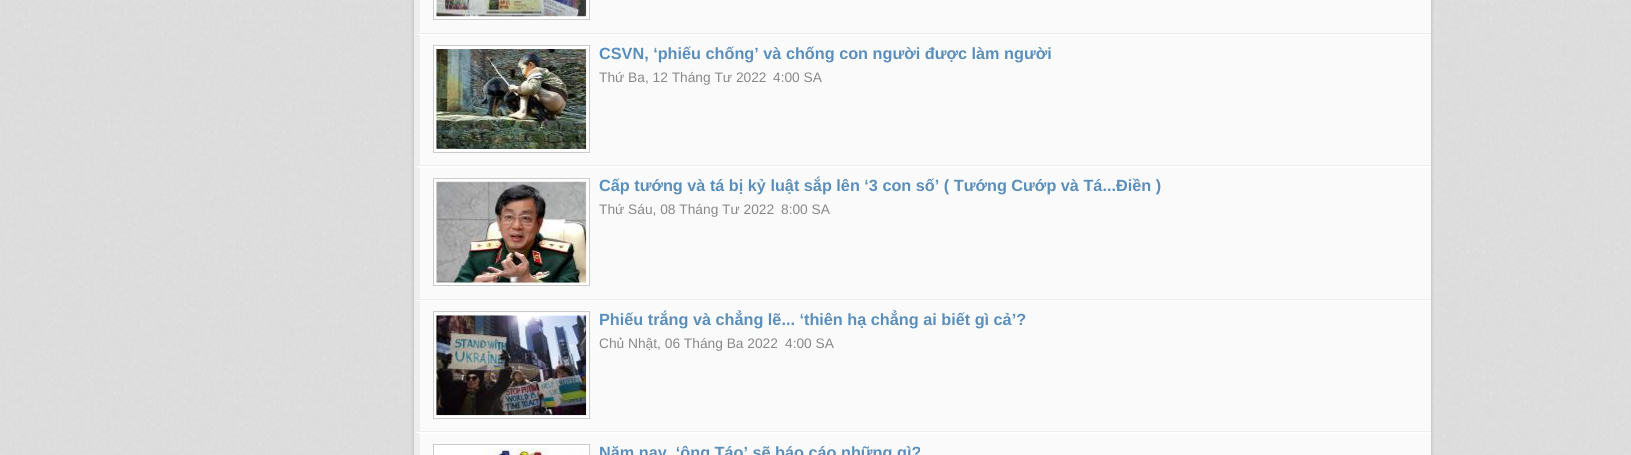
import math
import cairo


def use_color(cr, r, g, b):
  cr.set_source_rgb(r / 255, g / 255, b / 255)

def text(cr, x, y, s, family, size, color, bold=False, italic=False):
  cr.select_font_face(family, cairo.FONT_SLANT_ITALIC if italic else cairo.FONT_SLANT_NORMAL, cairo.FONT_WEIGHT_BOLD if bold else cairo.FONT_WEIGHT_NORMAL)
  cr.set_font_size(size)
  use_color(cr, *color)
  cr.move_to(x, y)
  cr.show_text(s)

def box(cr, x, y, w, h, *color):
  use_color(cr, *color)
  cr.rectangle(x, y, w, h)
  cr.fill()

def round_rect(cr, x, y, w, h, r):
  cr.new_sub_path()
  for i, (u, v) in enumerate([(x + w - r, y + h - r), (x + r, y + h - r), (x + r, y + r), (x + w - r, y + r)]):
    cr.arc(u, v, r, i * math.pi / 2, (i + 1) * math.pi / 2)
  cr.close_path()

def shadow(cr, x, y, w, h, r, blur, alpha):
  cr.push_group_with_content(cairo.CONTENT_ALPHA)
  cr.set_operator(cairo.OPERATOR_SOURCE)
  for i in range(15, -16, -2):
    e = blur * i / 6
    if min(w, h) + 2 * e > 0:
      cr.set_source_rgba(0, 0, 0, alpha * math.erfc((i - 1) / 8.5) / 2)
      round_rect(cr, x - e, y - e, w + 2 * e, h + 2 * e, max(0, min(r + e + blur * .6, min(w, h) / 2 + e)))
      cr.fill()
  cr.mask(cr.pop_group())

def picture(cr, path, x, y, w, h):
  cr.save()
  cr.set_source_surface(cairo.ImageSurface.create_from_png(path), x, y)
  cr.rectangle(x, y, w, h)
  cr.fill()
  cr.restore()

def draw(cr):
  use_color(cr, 255, 255, 255)
  cr.paint()
  picture(cr, "img_01.png", 0, 0, 1631, 455)
  use_color(cr, 0, 0, 0)
  shadow(cr, 414, -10, 1017, 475, 4, 2, 0.2)
  box(cr, 414, 0, 1017, 455, 250, 250, 250)
  box(cr, 414, 33, 1017, 1, 238, 238, 238)
  cr.new_path()
  cr.move_to(414, 34)
  cr.line_to(414, -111)
  cr.line_to(420, -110)
  cr.line_to(420, 32)
  cr.close_path()
  cr.fill()
  use_color(cr, 255, 255, 255)
  cr.rectangle(433.5, -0.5, 156, 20)
  cr.fill_preserve()
  use_color(cr, 204, 204, 204)
  cr.set_line_width(1)
  cr.stroke()
  picture(cr, "img_02.png", 436, 0, 151, 17)
  use_color(cr, 255, 255, 255)
  cr.new_path()
  cr.move_to(414, 34)
  cr.line_to(1431, 34)
  cr.line_to(1431, 35)
  cr.line_to(420, 35)
  cr.close_path()
  cr.fill()
  box(cr, 414, 165, 1017, 1, 238, 238, 238)
  cr.new_path()
  cr.move_to(414, 166)
  cr.line_to(414, 34)
  cr.line_to(420, 35)
  cr.line_to(420, 165)
  cr.close_path()
  cr.fill()
  box(cr, 434, 46, 155, 105, 255, 255, 255)
  cr.rectangle(433.5, 45.5, 156, 107)
  use_color(cr, 204, 204, 204)
  cr.stroke()
  picture(cr, "img_03.png", 436, 49, 151, 100)
  use_color(cr, 255, 255, 255)
  cr.new_path()
  cr.move_to(414, 166)
  cr.line_to(1431, 166)
  cr.line_to(1431, 168)
  cr.line_to(420, 168)
  cr.close_path()
  cr.fill()
  box(cr, 414, 299, 1017, 1, 238, 238, 238)
  cr.new_path()
  cr.move_to(414, 300)
  cr.line_to(414, 166)
  cr.line_to(420, 168)
  cr.line_to(420, 299)
  cr.close_path()
  cr.fill()
  use_color(cr, 255, 255, 255)
  cr.rectangle(433.5, 178.5, 156, 107)
  cr.fill_preserve()
  use_color(cr, 204, 204, 204)
  cr.stroke()
  picture(cr, "img_04.png", 436, 181, 151, 102)
  use_color(cr, 255, 255, 255)
  cr.new_path()
  cr.move_to(414, 300)
  cr.line_to(1431, 300)
  cr.line_to(1431, 301)
  cr.line_to(420, 301)
  cr.close_path()
  cr.fill()
  box(cr, 414, 431, 1017, 1, 238, 238, 238)
  cr.new_path()
  cr.move_to(414, 432)
  cr.line_to(414, 300)
  cr.line_to(420, 301)
  cr.line_to(420, 431)
  cr.close_path()
  cr.fill()
  box(cr, 434, 313, 155, 105, 255, 255, 255)
  cr.rectangle(433.5, 311.5, 156, 107)
  use_color(cr, 204, 204, 204)
  cr.stroke()
  picture(cr, "img_05.png", 436, 315, 151, 101)
  use_color(cr, 255, 255, 255)
  cr.new_path()
  cr.move_to(414, 432)
  cr.line_to(1431, 432)
  cr.line_to(1431, 434)
  cr.line_to(420, 434)
  cr.close_path()
  cr.fill()
  use_color(cr, 238, 238, 238)
  cr.new_path()
  cr.move_to(414, 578)
  cr.line_to(414, 432)
  cr.line_to(420, 434)
  cr.line_to(420, 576)
  cr.close_path()
  cr.fill()
  use_color(cr, 255, 255, 255)
  cr.rectangle(433.5, 444.5, 156, 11)
  cr.fill_preserve()
  use_color(cr, 204, 204, 204)
  cr.stroke()
  picture(cr, "img_06.png", 484, 448, 102, 7)
  text(cr, 599, 59, "CSVN, ‘phiếu chống’ và chống con người được làm người", "Liberation Sans", 16.25, (90, 142, 187), bold=True)
  text(cr, 599, 82, "Thứ Ba, 12 Tháng Tư 2022", "Liberation Sans", 13.75, (136, 136, 136))
  text(cr, 773, 82, "4:00 SA", "Liberation Sans", 13.75, (136, 136, 136))
  text(cr, 599, 191, "Cấp tướng và tá bị kỷ luật sắp lên ‘3 con số’ ( Tướng Cướp và Tá...Điền )", "Liberation Sans", 16.25, (90, 142, 187), bold=True)
  text(cr, 599, 214, "Thứ Sáu, 08 Tháng Tư 2022", "Liberation Sans", 13.75, (136, 136, 136))
  text(cr, 781, 214, "8:00 SA", "Liberation Sans", 13.75, (136, 136, 136))
  text(cr, 599, 325, "Phiếu trắng và chẳng lẽ... ‘thiên hạ chẳng ai biết gì cả’?", "Liberation Sans", 16.25, (90, 142, 187), bold=True)
  text(cr, 599, 348, "Chủ Nhật, 06 Tháng Ba 2022", "Liberation Sans", 13.75, (136, 136, 136))
  text(cr, 785, 348, "4:00 SA", "Liberation Sans", 13.75, (136, 136, 136))
  text(cr, 599, 458, "Năm nay, ‘ông Táo’ sẽ báo cáo những gì?", "Liberation Sans", 16.25, (90, 142, 187), bold=True)


surface = cairo.ImageSurface(cairo.FORMAT_RGB24, 1631, 455)
cr = cairo.Context(surface)
options = cairo.FontOptions()
options.set_hint_metrics(cairo.HINT_METRICS_OFF)
options.set_hint_style(cairo.HINT_STYLE_NONE)
cr.set_font_options(options)
cr.set_miter_limit(4)
draw(cr)
surface.write_to_png("out.png")
